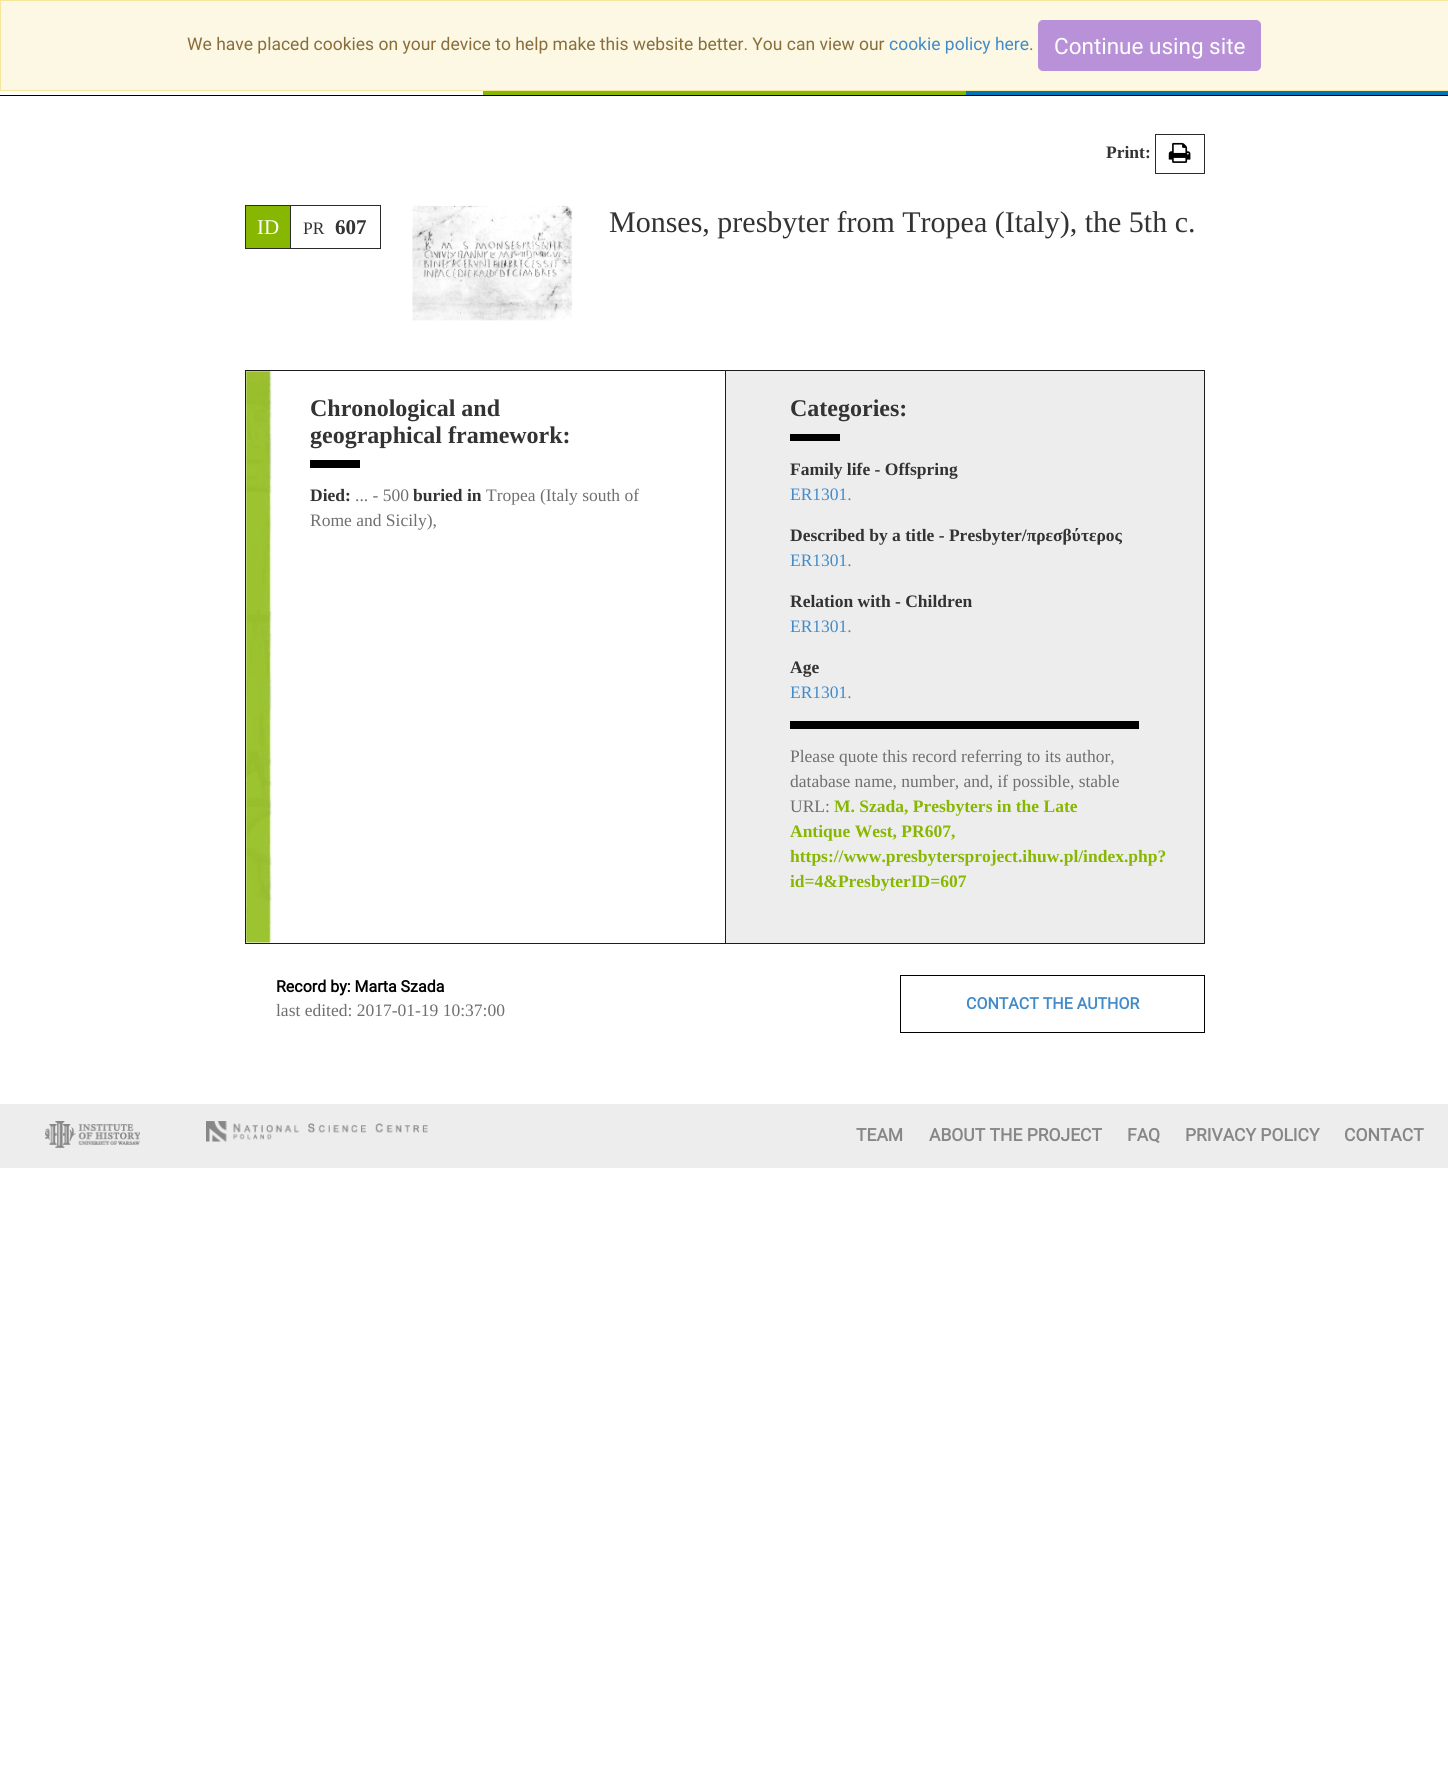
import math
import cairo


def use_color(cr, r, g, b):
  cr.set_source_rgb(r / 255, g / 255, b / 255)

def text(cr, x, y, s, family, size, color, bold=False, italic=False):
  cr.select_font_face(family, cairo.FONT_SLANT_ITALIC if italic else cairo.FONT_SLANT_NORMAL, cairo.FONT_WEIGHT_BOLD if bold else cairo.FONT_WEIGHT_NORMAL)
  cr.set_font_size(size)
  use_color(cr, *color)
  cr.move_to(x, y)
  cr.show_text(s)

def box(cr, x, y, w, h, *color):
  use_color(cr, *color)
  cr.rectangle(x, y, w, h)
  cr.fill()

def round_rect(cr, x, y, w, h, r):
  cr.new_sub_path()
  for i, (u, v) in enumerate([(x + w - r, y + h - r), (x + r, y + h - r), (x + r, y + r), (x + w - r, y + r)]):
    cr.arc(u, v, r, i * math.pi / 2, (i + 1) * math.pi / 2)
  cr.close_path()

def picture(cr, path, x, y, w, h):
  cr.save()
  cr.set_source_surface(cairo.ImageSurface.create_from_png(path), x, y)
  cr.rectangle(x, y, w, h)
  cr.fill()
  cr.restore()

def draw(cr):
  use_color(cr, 255, 255, 255)
  cr.paint()
  use_color(cr, 252, 248, 227)
  cr.rectangle(0.5, 0.5, 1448, 90)
  cr.fill_preserve()
  use_color(cr, 245, 231, 158)
  cr.set_line_width(1)
  cr.stroke()
  use_color(cr, 184, 145, 216)
  round_rect(cr, 1038.5, 20.5, 222, 50, 4.5)
  cr.fill_preserve()
  cr.stroke()
  box(cr, 483, 91, 483, 4, 135, 183, 0)
  box(cr, 966, 91, 482, 4, 0, 117, 186)
  box(cr, 0, 95, 1448, 1, 0, 0, 0)
  cr.rectangle(1155.5, 134.5, 49, 39)
  use_color(cr, 43, 43, 43)
  cr.stroke()
  picture(cr, "img_01.png", 1168, 142, 23, 21)
  cr.rectangle(245.5, 205.5, 135, 43)
  cr.stroke()
  box(cr, 246, 206, 44, 42, 135, 183, 0)
  box(cr, 290, 206, 1, 42, 43, 43, 43)
  picture(cr, "img_02.png", 412, 205, 161, 116)
  cr.rectangle(245.5, 370.5, 959, 573)
  use_color(cr, 28, 28, 27)
  cr.stroke()
  picture(cr, "img_03.png", 246, 371, 26, 572)
  box(cr, 310, 460, 50, 8, 0, 0, 0)
  box(cr, 726, 371, 478, 572, 237, 237, 237)
  box(cr, 725, 371, 1, 572, 28, 28, 27)
  box(cr, 790, 721, 349, 8, 0, 0, 0)
  box(cr, 790, 434, 50, 7, 0, 0, 0)
  cr.rectangle(900.5, 975.5, 304, 57)
  cr.stroke()
  box(cr, 0, 1104, 1448, 64, 237, 237, 237)
  picture(cr, "img_04.png", 45, 1121, 95, 27)
  picture(cr, "img_05.png", 206, 1121, 222, 21)
  text(cr, 187, 50, "We have placed cookies on your device to help make this website better. You can view our", "Roboto", 17.5, (138, 109, 59))
  text(cr, 889, 50, "cookie policy here", "Roboto", 17.5, (66, 139, 202))
  text(cr, 1029, 50, ".", "Roboto", 17.5, (138, 109, 59))
  text(cr, 1054, 54, "Continue using site", "Roboto", 22.5, (255, 255, 255))
  text(cr, 1106, 158, "Print:", "Liberation Serif", 17.5, (51, 51, 51), bold=True)
  text(cr, 257, 234, "ID", "Liberation Serif", 21, (255, 255, 255))
  text(cr, 303, 234, "PR", "Liberation Serif", 17.5, (51, 51, 51))
  text(cr, 335, 234, "607", "Liberation Serif", 21, (51, 51, 51), bold=True)
  text(cr, 609, 232, "Monses, presbyter from Tropea (Italy), the 5th c.", "Liberation Serif", 30, (51, 51, 51))
  text(cr, 310, 416, "Chronological and", "Liberation Serif", 24, (51, 51, 51), bold=True)
  text(cr, 310, 443, "geographical framework:", "Liberation Serif", 24, (51, 51, 51), bold=True)
  text(cr, 310, 501, "Died:", "Liberation Serif", 17.5, (51, 51, 51), bold=True)
  text(cr, 355, 501, "... - 500", "Liberation Serif", 17.5, (111, 111, 111))
  text(cr, 413, 501, "buried in", "Liberation Serif", 17.5, (51, 51, 51), bold=True)
  text(cr, 486, 501, "Tropea (Italy south of", "Liberation Serif", 17.5, (111, 111, 111))
  text(cr, 310, 526, "Rome and Sicily),", "Liberation Serif", 17.5, (111, 111, 111))
  text(cr, 790, 416, "Categories:", "Liberation Serif", 24, (51, 51, 51), bold=True)
  text(cr, 790, 475, "Family life - Offspring", "Liberation Serif", 17.5, (51, 51, 51), bold=True)
  text(cr, 790, 500, "ER1301.", "Liberation Serif", 17.5, (66, 139, 202))
  text(cr, 790, 541, "Described by a title - Presbyter/πρεσβύτερος", "Liberation Serif", 17.5, (51, 51, 51), bold=True)
  text(cr, 790, 566, "ER1301.", "Liberation Serif", 17.5, (66, 139, 202))
  text(cr, 790, 607, "Relation with - Children", "Liberation Serif", 17.5, (51, 51, 51), bold=True)
  text(cr, 790, 632, "ER1301.", "Liberation Serif", 17.5, (66, 139, 202))
  text(cr, 790, 673, "Age", "Liberation Serif", 17.5, (51, 51, 51), bold=True)
  text(cr, 790, 698, "ER1301.", "Liberation Serif", 17.5, (66, 139, 202))
  text(cr, 790, 762, "Please quote this record referring to its author,", "Liberation Serif", 17.5, (111, 111, 111))
  text(cr, 790, 787, "database name, number, and, if possible, stable", "Liberation Serif", 17.5, (111, 111, 111))
  text(cr, 790, 812, "URL:", "Liberation Serif", 17.5, (111, 111, 111))
  text(cr, 834, 812, "M. Szada, Presbyters in the Late", "Liberation Serif", 17.5, (135, 183, 0), bold=True)
  text(cr, 790, 837, "Antique West, PR607,", "Liberation Serif", 17.5, (135, 183, 0), bold=True)
  text(cr, 790, 862, "https://www.presbytersproject.ihuw.pl/index.php?", "Liberation Serif", 17.5, (135, 183, 0), bold=True)
  text(cr, 790, 887, "id=4&PresbyterID=607", "Liberation Serif", 17.5, (135, 183, 0), bold=True)
  text(cr, 276, 992, "Record by: Marta Szada", "Roboto", 16, (0, 0, 0), bold=True)
  text(cr, 276, 1016, "last edited: 2017-01-19 10:37:00", "Liberation Serif", 17.5, (111, 111, 111))
  text(cr, 966, 1009, "CONTACT THE AUTHOR", "Roboto", 16, (66, 139, 202), bold=True)
  text(cr, 856, 1141, "TEAM", "Roboto", 17.5, (135, 135, 135), bold=True)
  text(cr, 929, 1141, "ABOUT THE PROJECT", "Roboto", 17.5, (135, 135, 135), bold=True)
  text(cr, 1127, 1141, "FAQ", "Roboto", 17.5, (135, 135, 135), bold=True)
  text(cr, 1185, 1141, "PRIVACY POLICY", "Roboto", 17.5, (135, 135, 135), bold=True)
  text(cr, 1344, 1141, "CONTACT", "Roboto", 17.5, (135, 135, 135), bold=True)


surface = cairo.ImageSurface(cairo.FORMAT_RGB24, 1448, 1773)
cr = cairo.Context(surface)
options = cairo.FontOptions()
options.set_hint_metrics(cairo.HINT_METRICS_OFF)
options.set_hint_style(cairo.HINT_STYLE_NONE)
cr.set_font_options(options)
cr.set_miter_limit(4)
draw(cr)
surface.write_to_png("out.png")
